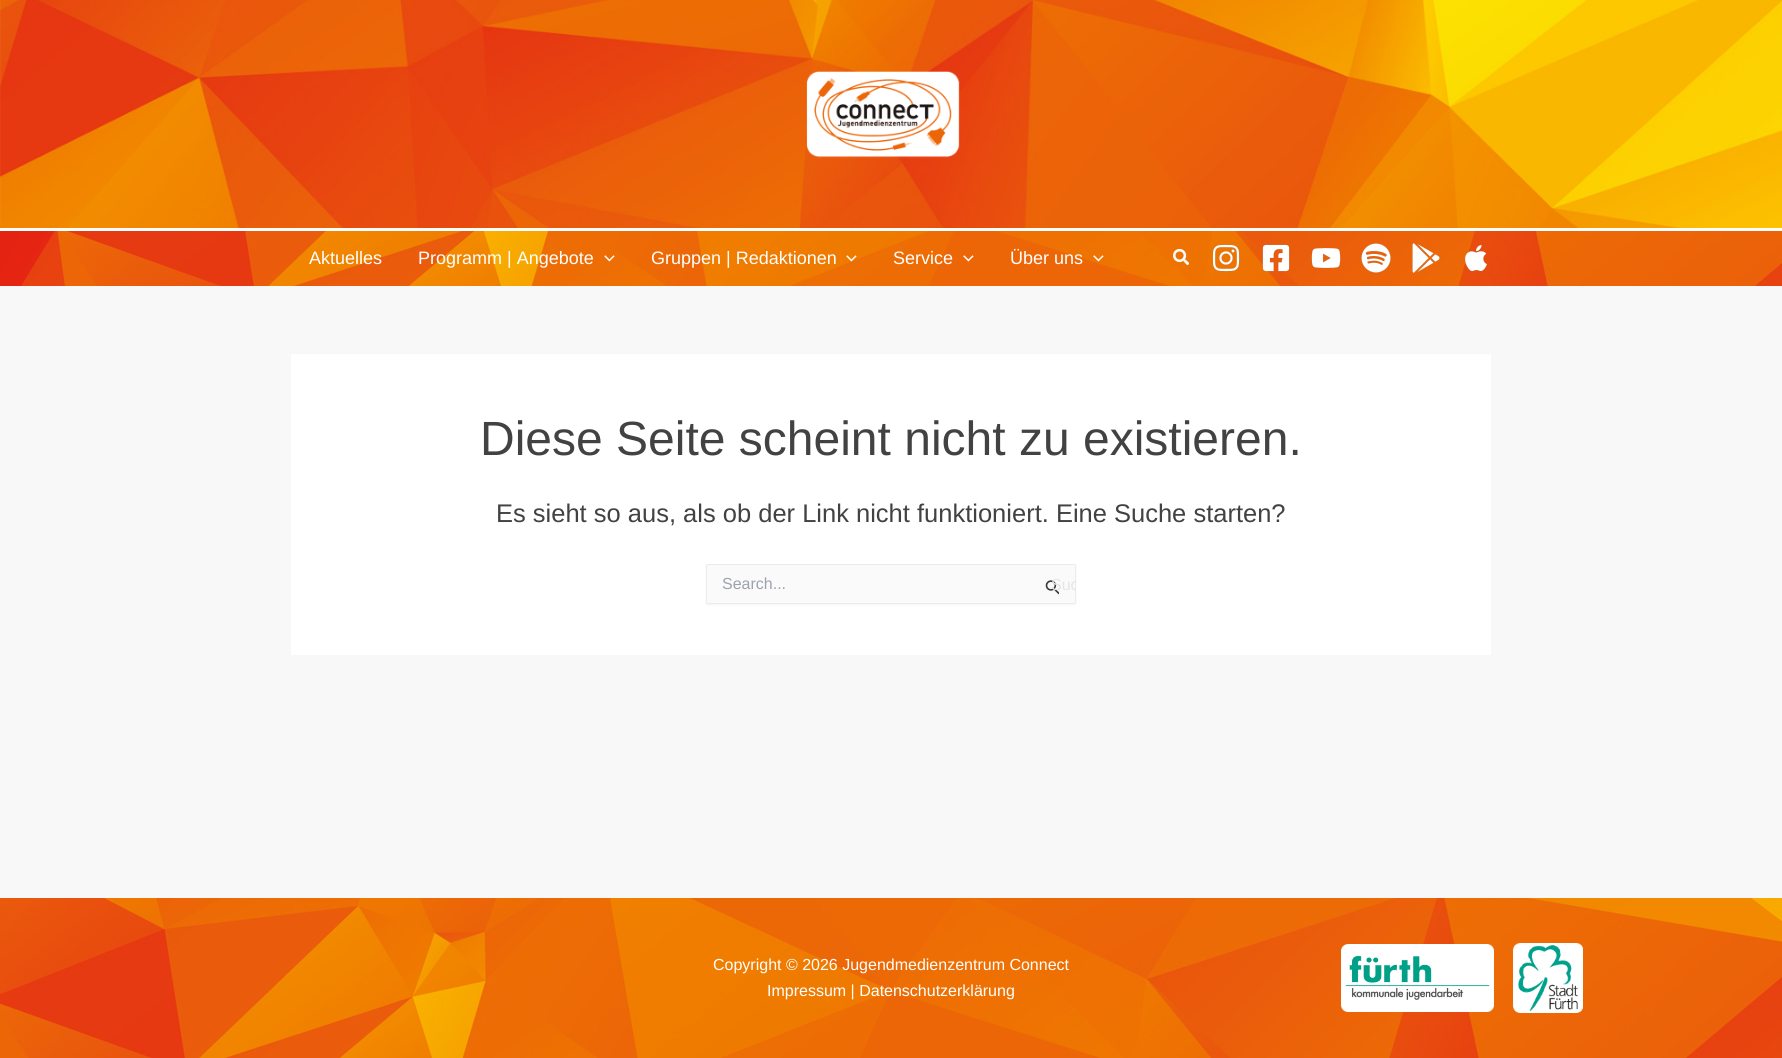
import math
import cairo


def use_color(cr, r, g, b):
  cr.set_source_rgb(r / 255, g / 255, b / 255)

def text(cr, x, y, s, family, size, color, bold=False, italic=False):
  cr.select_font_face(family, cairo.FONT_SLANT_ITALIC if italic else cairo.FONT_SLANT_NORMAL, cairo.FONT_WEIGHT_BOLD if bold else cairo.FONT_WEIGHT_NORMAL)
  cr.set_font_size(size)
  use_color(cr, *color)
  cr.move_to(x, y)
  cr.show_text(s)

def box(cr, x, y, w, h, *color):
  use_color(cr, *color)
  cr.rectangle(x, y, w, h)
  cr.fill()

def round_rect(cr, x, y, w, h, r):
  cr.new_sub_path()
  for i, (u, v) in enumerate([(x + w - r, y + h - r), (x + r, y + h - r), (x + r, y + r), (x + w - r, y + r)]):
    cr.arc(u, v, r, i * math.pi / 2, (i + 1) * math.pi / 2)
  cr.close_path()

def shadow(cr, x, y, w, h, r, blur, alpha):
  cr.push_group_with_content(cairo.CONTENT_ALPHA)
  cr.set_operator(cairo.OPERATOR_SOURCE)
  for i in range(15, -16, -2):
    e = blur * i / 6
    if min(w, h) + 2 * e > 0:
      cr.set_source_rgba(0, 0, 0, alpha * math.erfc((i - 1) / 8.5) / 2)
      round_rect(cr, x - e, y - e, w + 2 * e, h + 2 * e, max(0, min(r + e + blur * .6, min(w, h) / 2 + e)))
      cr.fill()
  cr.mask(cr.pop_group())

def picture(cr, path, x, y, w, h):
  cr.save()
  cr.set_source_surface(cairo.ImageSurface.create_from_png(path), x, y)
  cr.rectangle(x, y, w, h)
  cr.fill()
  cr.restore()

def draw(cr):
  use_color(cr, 248, 248, 248)
  cr.paint()
  picture(cr, "img_01.png", 0, 0, 1782, 228)
  box(cr, 0, 228, 1782, 3, 255, 255, 255)
  picture(cr, "img_02.png", 806, 71, 154, 87)
  picture(cr, "img_03.png", 0, 231, 1782, 55)
  picture(cr, "img_04.png", 604, 255, 11, 7)
  picture(cr, "img_05.png", 846, 255, 11, 7)
  picture(cr, "img_06.png", 963, 255, 11, 7)
  picture(cr, "img_07.png", 1093, 255, 11, 7)
  picture(cr, "img_08.png", 1173, 248, 16, 17)
  picture(cr, "img_09.png", 1212, 244, 28, 28)
  picture(cr, "img_10.png", 1262, 244, 28, 28)
  picture(cr, "img_11.png", 1311, 247, 30, 22)
  picture(cr, "img_12.png", 1361, 243, 30, 30)
  picture(cr, "img_13.png", 1412, 243, 28, 30)
  picture(cr, "img_14.png", 1464, 244, 23, 28)
  box(cr, 291, 354, 1200, 301, 255, 255, 255)
  use_color(cr, 0, 0, 0)
  shadow(cr, 706, 565, 370, 40, 2, 1, 0.05)
  use_color(cr, 250, 250, 250)
  round_rect(cr, 706.5, 564.5, 369, 39, 1.5)
  cr.fill_preserve()
  use_color(cr, 235, 235, 235)
  cr.set_line_width(1)
  cr.stroke()
  picture(cr, "img_15.png", 1045, 580, 14, 15)
  picture(cr, "img_16.png", 0, 898, 1782, 160)
  picture(cr, "img_17.png", 1341, 944, 153, 68)
  picture(cr, "img_18.png", 1513, 943, 70, 70)
  text(cr, 309, 264, "Aktuelles", "Liberation Sans", 18, (255, 255, 255))
  text(cr, 418, 264, "Programm | Angebote", "Liberation Sans", 18, (255, 255, 255))
  text(cr, 651, 264, "Gruppen | Redaktionen", "Liberation Sans", 18, (255, 255, 255))
  text(cr, 893, 264, "Service", "Liberation Sans", 18, (255, 255, 255))
  text(cr, 1010, 264, "Über uns", "Liberation Sans", 18, (255, 255, 255))
  text(cr, 480, 455, "Diese Seite scheint nicht zu existieren.", "Liberation Sans", 48, (67, 66, 66))
  text(cr, 496, 522, "Es sieht so aus, als ob der Link nicht funktioniert. Eine Suche starten?", "Liberation Sans", 25.5, (67, 66, 66))
  text(cr, 722, 589, "Search...", "Liberation Sans", 16, (156, 163, 175))
  cr.save()
  round_rect(cr, 1031, 564, 45, 42, 2)
  cr.clip()
  text(cr, 1051, 590, "Suc", "Liberation Sans", 16, (229, 229, 229))
  cr.restore()
  text(cr, 713, 970, "Copyright © 2026 Jugendmedienzentrum Connect", "Liberation Sans", 16, (255, 255, 255))
  text(cr, 767, 996, "Impressum | Datenschutzerklärung", "Liberation Sans", 16, (255, 255, 255))


surface = cairo.ImageSurface(cairo.FORMAT_RGB24, 1782, 1058)
cr = cairo.Context(surface)
options = cairo.FontOptions()
options.set_hint_metrics(cairo.HINT_METRICS_OFF)
options.set_hint_style(cairo.HINT_STYLE_NONE)
cr.set_font_options(options)
cr.set_miter_limit(4)
draw(cr)
surface.write_to_png("out.png")
